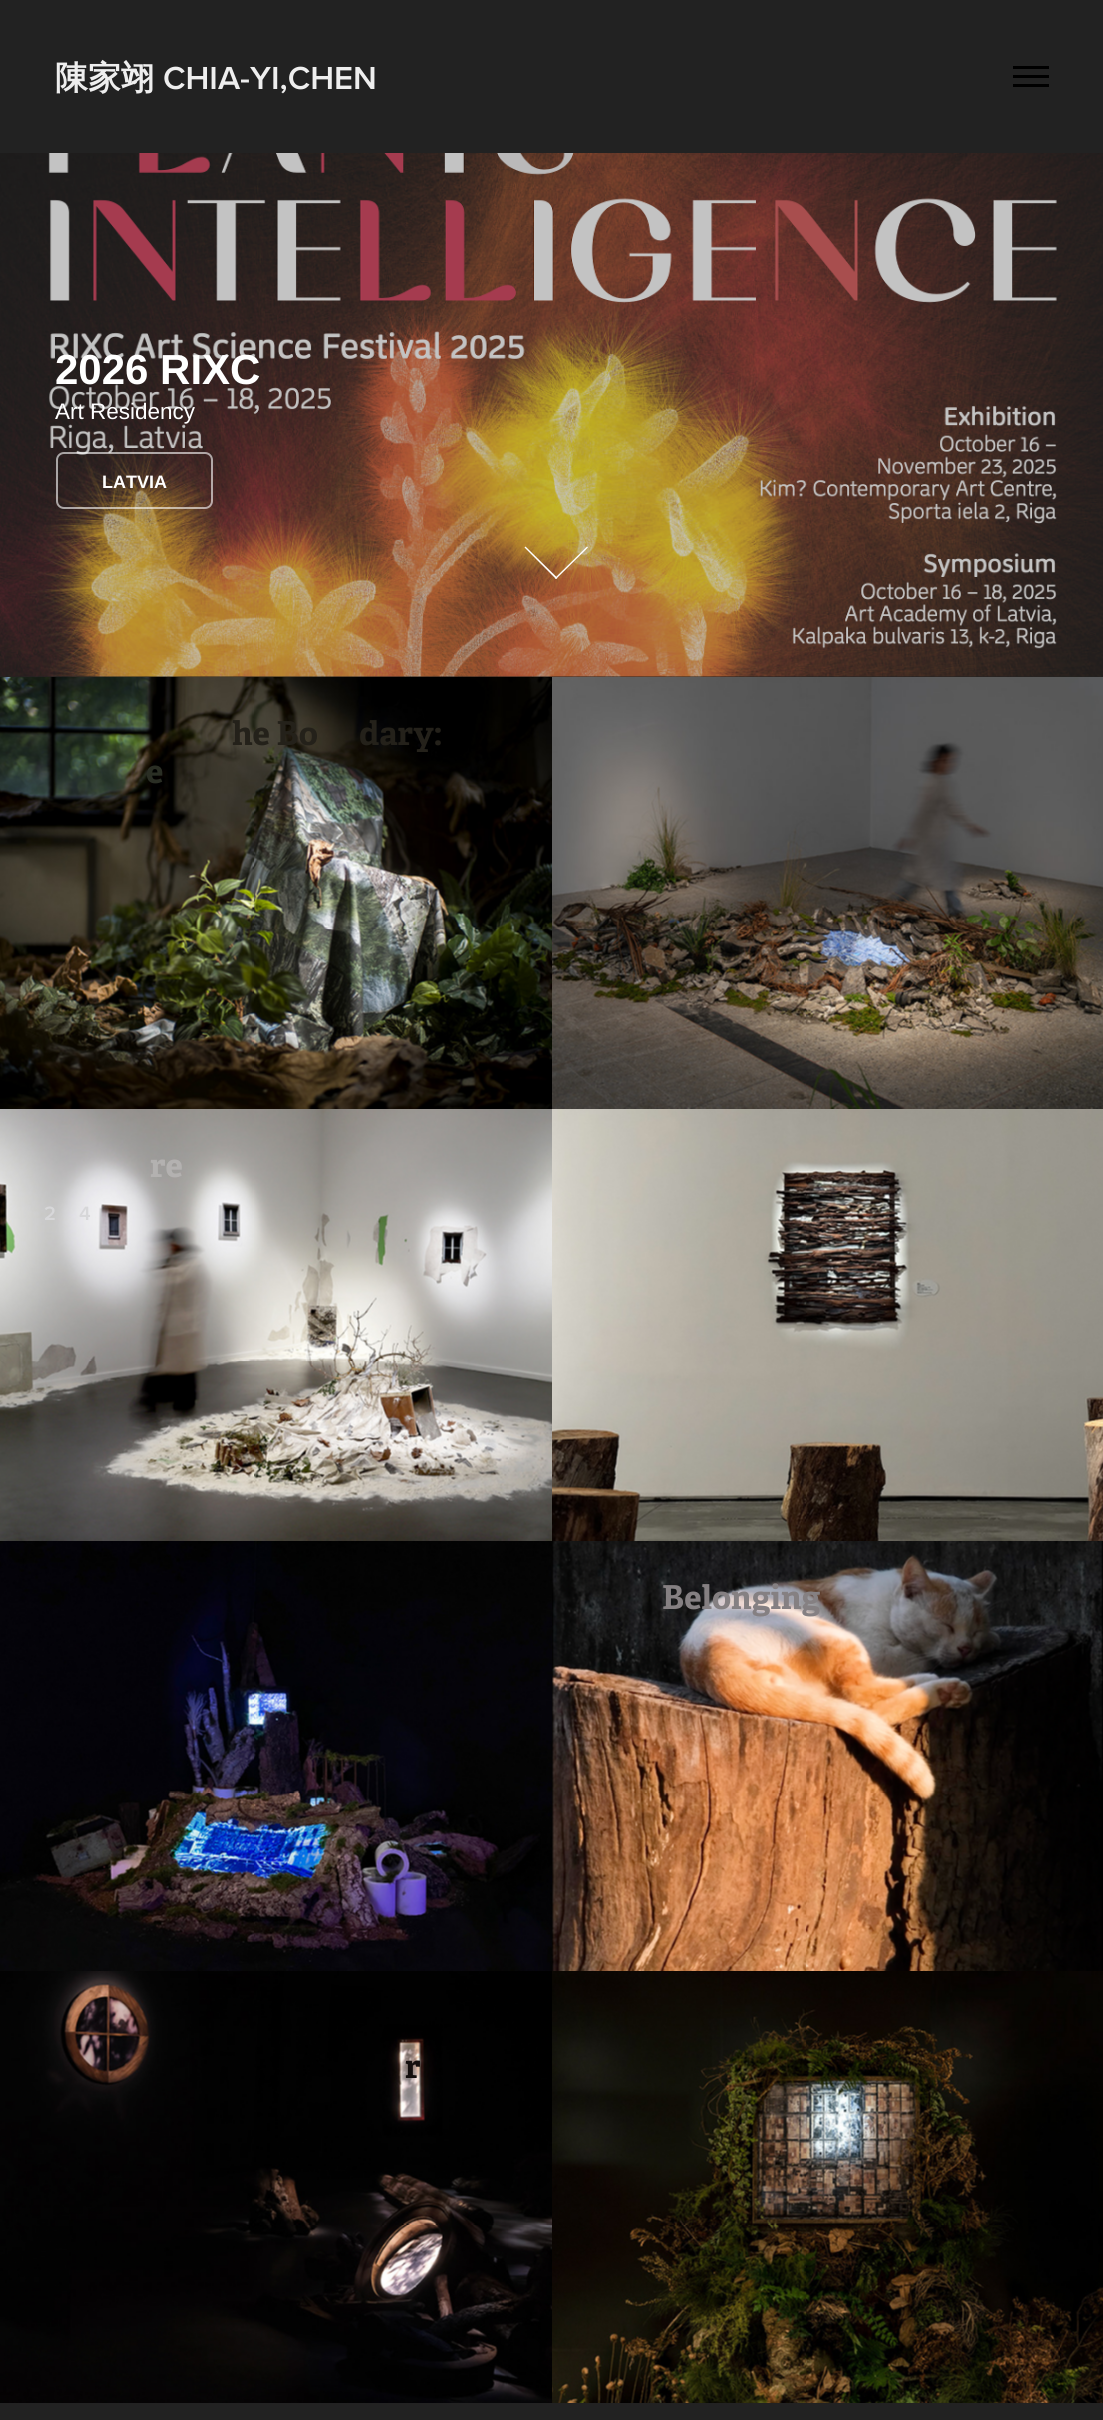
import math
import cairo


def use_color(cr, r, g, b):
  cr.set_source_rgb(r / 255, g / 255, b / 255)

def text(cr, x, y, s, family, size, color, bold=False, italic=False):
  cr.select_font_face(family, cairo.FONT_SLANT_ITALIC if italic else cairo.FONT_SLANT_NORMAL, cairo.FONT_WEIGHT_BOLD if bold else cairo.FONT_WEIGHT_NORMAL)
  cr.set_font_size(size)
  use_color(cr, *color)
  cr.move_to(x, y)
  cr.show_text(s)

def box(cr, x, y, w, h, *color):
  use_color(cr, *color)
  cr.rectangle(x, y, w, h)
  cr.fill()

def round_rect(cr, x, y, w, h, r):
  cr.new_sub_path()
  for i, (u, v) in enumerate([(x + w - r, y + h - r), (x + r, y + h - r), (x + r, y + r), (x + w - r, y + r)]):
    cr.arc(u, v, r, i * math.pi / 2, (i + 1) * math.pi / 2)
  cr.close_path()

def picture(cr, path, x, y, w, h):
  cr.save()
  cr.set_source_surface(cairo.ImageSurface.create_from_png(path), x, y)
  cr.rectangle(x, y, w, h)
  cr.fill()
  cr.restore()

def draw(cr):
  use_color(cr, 34, 34, 34)
  cr.paint()
  box(cr, 1013, 66, 36, 3, 0, 0, 0)
  box(cr, 1013, 75, 36, 3, 0, 0, 0)
  box(cr, 1013, 84, 36, 3, 0, 0, 0)
  picture(cr, "img_01.png", 0, 153, 1103, 524)
  round_rect(cr, 57, 453, 155, 55, 7)
  cr.set_source_rgba(1, 1, 1, 0.6)
  cr.stroke()
  use_color(cr, 255, 255, 255)
  cr.new_path()
  cr.move_to(587, 546.5)
  cr.line_to(588, 547.5)
  cr.line_to(556, 579)
  cr.line_to(555, 578)
  cr.close_path()
  cr.fill()
  cr.new_path()
  cr.move_to(525.5, 546.5)
  cr.line_to(557.5, 578)
  cr.line_to(556, 579)
  cr.line_to(524.5, 547.5)
  cr.close_path()
  cr.fill()
  picture(cr, "img_02.png", 0, 677, 552, 432)
  picture(cr, "img_03.png", 552, 677, 551, 432)
  picture(cr, "img_04.png", 0, 1109, 552, 432)
  picture(cr, "img_05.png", 552, 1109, 551, 432)
  picture(cr, "img_06.png", 0, 1541, 552, 430)
  picture(cr, "img_07.png", 552, 1541, 551, 430)
  picture(cr, "img_08.png", 0, 1971, 552, 432)
  picture(cr, "img_09.png", 552, 1971, 551, 432)
  text(cr, 55, 89, "陳家翊", "WenQuanYi Zen Hei", 33, (238, 238, 238), bold=True)
  text(cr, 163, 89, "CHIA-YI,CHEN", "Proxima Nova SemiBold", 33, (238, 238, 238))
  text(cr, 55, 384, "2026 RIXC", "Liberation Sans", 42, (255, 255, 255), bold=True)
  text(cr, 55, 419, "Art Residency", "Liberation Sans", 22.5, (255, 255, 255))
  text(cr, 102, 488, "LATVIA", "Liberation Sans", 18, (255, 255, 255), bold=True)
  text(cr, 232, 745, "he Bo", "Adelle", 33, (36, 33, 26), bold=True)
  text(cr, 359, 745, "dary:", "Adelle", 33, (36, 33, 26), bold=True)
  text(cr, 146, 783, "e", "Adelle", 33, (42, 46, 36), bold=True)
  text(cr, 150, 1177, "re", "Adelle", 33, (179, 177, 176), bold=True)
  text(cr, 44, 1220, "2", "Proxima Nova SemiBold", 20, (215, 215, 217))
  text(cr, 79, 1220, "4", "Proxima Nova SemiBold", 20, (215, 215, 217))
  text(cr, 662, 1609, "Belonging", "Adelle", 33, (133, 128, 130), bold=True)
  text(cr, 405, 2078, "r", "Adelle", 33, (20, 15, 14), bold=True)


surface = cairo.ImageSurface(cairo.FORMAT_RGB24, 1103, 2420)
cr = cairo.Context(surface)
options = cairo.FontOptions()
options.set_hint_metrics(cairo.HINT_METRICS_OFF)
options.set_hint_style(cairo.HINT_STYLE_NONE)
cr.set_font_options(options)
cr.set_miter_limit(4)
draw(cr)
surface.write_to_png("out.png")
